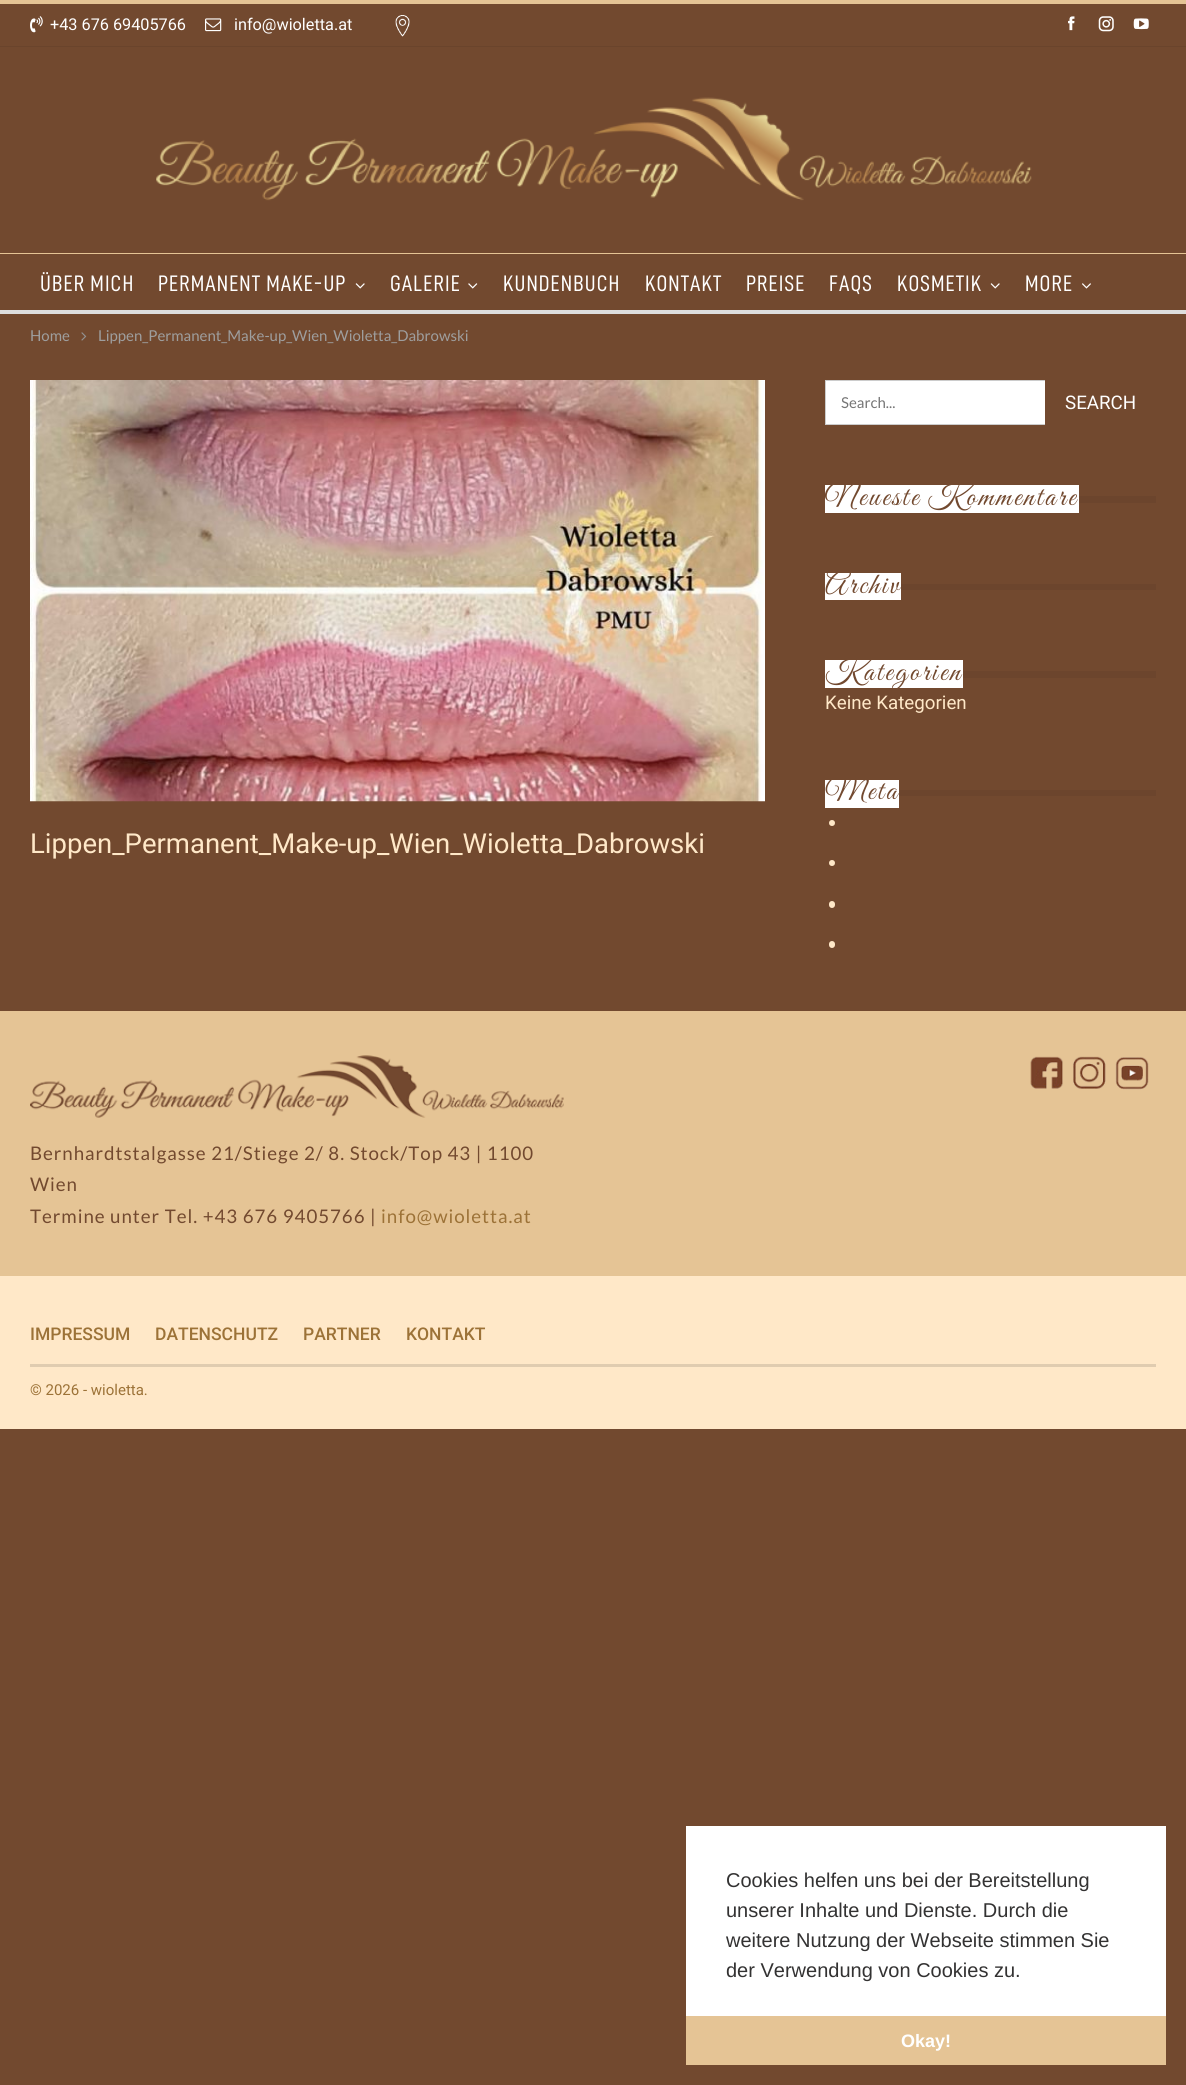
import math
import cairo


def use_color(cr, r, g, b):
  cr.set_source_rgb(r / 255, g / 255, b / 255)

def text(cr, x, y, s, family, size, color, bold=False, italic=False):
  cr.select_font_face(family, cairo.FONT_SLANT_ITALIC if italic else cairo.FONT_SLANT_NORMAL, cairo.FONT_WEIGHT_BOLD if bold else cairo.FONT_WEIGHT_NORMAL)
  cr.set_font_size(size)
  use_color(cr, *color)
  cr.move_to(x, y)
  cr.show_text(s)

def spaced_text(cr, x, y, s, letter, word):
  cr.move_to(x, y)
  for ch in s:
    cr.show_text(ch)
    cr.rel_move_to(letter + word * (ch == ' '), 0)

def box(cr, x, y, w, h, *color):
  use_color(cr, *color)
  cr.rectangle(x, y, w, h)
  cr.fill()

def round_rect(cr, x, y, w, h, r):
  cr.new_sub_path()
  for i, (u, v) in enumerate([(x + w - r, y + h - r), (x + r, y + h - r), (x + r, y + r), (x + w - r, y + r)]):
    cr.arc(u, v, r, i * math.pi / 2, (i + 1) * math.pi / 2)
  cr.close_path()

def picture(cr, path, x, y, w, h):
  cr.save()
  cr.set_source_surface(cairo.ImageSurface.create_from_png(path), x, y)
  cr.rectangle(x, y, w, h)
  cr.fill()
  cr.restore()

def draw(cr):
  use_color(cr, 114, 73, 47)
  cr.paint()
  box(cr, 0, 0, 1186, 4, 229, 196, 149)
  box(cr, 0, 46, 1186, 1, 106, 68, 44)
  picture(cr, "img_01.png", 30, 16, 13, 17)
  picture(cr, "img_02.png", 205, 18, 17, 14)
  picture(cr, "img_03.png", 395, 15, 15, 22)
  picture(cr, "img_04.png", 1068, 16, 7, 15)
  picture(cr, "img_05.png", 1098, 16, 16, 16)
  picture(cr, "img_06.png", 1133, 18, 16, 12)
  picture(cr, "img_07.png", 156, 97, 876, 104)
  box(cr, 0, 253, 1186, 1, 229, 196, 149)
  box(cr, 0, 310, 1186, 4, 222, 222, 222)
  picture(cr, "img_08.png", 355, 283, 10, 6)
  picture(cr, "img_09.png", 468, 283, 10, 6)
  picture(cr, "img_08.png", 990, 283, 10, 6)
  picture(cr, "img_10.png", 1082, 283, 9, 6)
  picture(cr, "img_11.png", 81, 332, 6, 9)
  box(cr, 826, 381, 219, 43, 255, 255, 255)
  cr.rectangle(825.5, 380.5, 330, 44)
  use_color(cr, 204, 204, 204)
  cr.set_line_width(1)
  cr.stroke()
  box(cr, 1045, 380, 111, 45, 114, 73, 47)
  box(cr, 825, 485, 254, 28, 255, 255, 255)
  box(cr, 1079, 496, 77, 7, 108, 69, 45)
  box(cr, 825, 573, 76, 27, 255, 255, 255)
  box(cr, 901, 584, 255, 6, 108, 69, 45)
  box(cr, 825, 660, 138, 28, 255, 255, 255)
  box(cr, 963, 671, 193, 7, 108, 69, 45)
  box(cr, 825, 780, 74, 28, 255, 255, 255)
  box(cr, 899, 790, 257, 6, 108, 69, 45)
  use_color(cr, 255, 232, 200)
  cr.arc(832, 823, 3, 0, 2 * math.pi)
  cr.fill()
  cr.arc(832, 863, 3, 0, 2 * math.pi)
  cr.fill()
  round_rect(cr, 829, 901, 6, 7, 3)
  cr.fill()
  round_rect(cr, 829, 941, 6, 7, 3)
  cr.fill()
  picture(cr, "img_12.png", 30, 380, 735, 422)
  box(cr, 0, 1011, 1186, 265, 229, 196, 149)
  picture(cr, "img_13.png", 1030, 1056, 33, 33)
  picture(cr, "img_14.png", 1073, 1056, 33, 33)
  picture(cr, "img_15.png", 1115, 1057, 34, 33)
  picture(cr, "img_16.png", 30, 1055, 534, 63)
  box(cr, 0, 1276, 1186, 153, 255, 232, 200)
  box(cr, 30, 1364, 1126, 3, 224, 204, 176)
  box(cr, 686, 1826, 480, 190, 255, 255, 255)
  box(cr, 686, 2016, 480, 49, 229, 196, 149)
  text(cr, 50, 30, "+43 676 69405766", "Roboto", 16.25, (255, 255, 255))
  text(cr, 234, 30, "info@wioletta.at", "Roboto", 16.25, (255, 255, 255))
  cr.select_font_face("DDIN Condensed")
  cr.set_font_size(22.5)
  spaced_text(cr, 40, 291, "ÜBER MICH", 1.1, 0)
  spaced_text(cr, 158, 291, "PERMANENT MAKE-UP", 1.1, 0)
  spaced_text(cr, 390, 291, "GALERIE", 1.1, 0)
  spaced_text(cr, 503, 291, "KUNDENBUCH", 1.1, 0)
  spaced_text(cr, 645, 291, "KONTAKT", 1.1, 0)
  spaced_text(cr, 746, 291, "PREISE", 1.1, 0)
  spaced_text(cr, 829, 291, "FAQS", 1.1, 0)
  spaced_text(cr, 897, 291, "KOSMETIK", 1.1, 0)
  spaced_text(cr, 1025, 291, "MORE", 1.1, 0)
  text(cr, 30, 341, "Home", "Lato", 15, (158, 158, 158))
  text(cr, 98, 341, "Lippen_Permanent_Make-up_Wien_Wioletta_Dabrowski", "Lato", 15, (158, 158, 158))
  text(cr, 841, 408, "Search...", "Lato", 15, (117, 117, 117))
  text(cr, 1065, 409, "SEARCH", "Roboto", 18.75, (255, 255, 255))
  cr.select_font_face("Great Vibes")
  cr.set_font_size(30)
  use_color(cr, 114, 73, 47)
  spaced_text(cr, 825, 505, "Neueste Kommentare", 2.4, -1)
  spaced_text(cr, 825, 593, "Archiv", 2.4, 0)
  spaced_text(cr, 825, 680, "Kategorien", 2.4, 0)
  text(cr, 825, 709, "Keine Kategorien", "Roboto", 18.75, (255, 232, 200))
  cr.select_font_face("Great Vibes")
  cr.set_font_size(30)
  use_color(cr, 114, 73, 47)
  spaced_text(cr, 825, 799, "Meta", 2.4, 0)
  text(cr, 30, 853, "Lippen_Permanent_Make-up_Wien_Wioletta_Dabrowski", "Roboto", 27.5, (255, 232, 200))
  cr.select_font_face("Lato")
  cr.set_font_size(18.75)
  use_color(cr, 114, 73, 47)
  spaced_text(cr, 30, 1160, "Bernhardtstalgasse 21/Stiege 2/ 8. Stock/Top 43 | 1100", 0.95, 0)
  spaced_text(cr, 30, 1191, "Wien", 0.95, 0)
  spaced_text(cr, 30, 1223, "Termine unter Tel. +43 676 9405766 |", 0.95, 0)
  use_color(cr, 156, 114, 55)
  spaced_text(cr, 381, 1223, "info@wioletta.at", 0.95, 0)
  text(cr, 30, 1340, "IMPRESSUM", "Roboto Medium", 17.5, (156, 114, 55))
  text(cr, 155, 1340, "DATENSCHUTZ", "Roboto Medium", 17.5, (156, 114, 55))
  text(cr, 303, 1340, "PARTNER", "Roboto Medium", 17.5, (156, 114, 55))
  text(cr, 406, 1340, "KONTAKT", "Roboto Medium", 17.5, (156, 114, 55))
  text(cr, 30, 1395, "© 2026 - wioletta.", "Roboto", 15, (156, 114, 55))
  text(cr, 726, 1887, "Cookies helfen uns bei der Bereitstellung", "Liberation Sans", 20, (51, 50, 50))
  text(cr, 726, 1917, "unserer Inhalte und Dienste. Durch die", "Liberation Sans", 20, (51, 50, 50))
  text(cr, 726, 1947, "weitere Nutzung der Webseite stimmen Sie", "Liberation Sans", 20, (51, 50, 50))
  text(cr, 726, 1977, "der Verwendung von Cookies zu.", "Liberation Sans", 20, (51, 50, 50))
  text(cr, 901, 2047, "Okay!", "Liberation Sans", 18, (255, 255, 255), bold=True)


surface = cairo.ImageSurface(cairo.FORMAT_RGB24, 1186, 2085)
cr = cairo.Context(surface)
options = cairo.FontOptions()
options.set_hint_metrics(cairo.HINT_METRICS_OFF)
options.set_hint_style(cairo.HINT_STYLE_NONE)
cr.set_font_options(options)
cr.set_miter_limit(4)
draw(cr)
surface.write_to_png("out.png")
